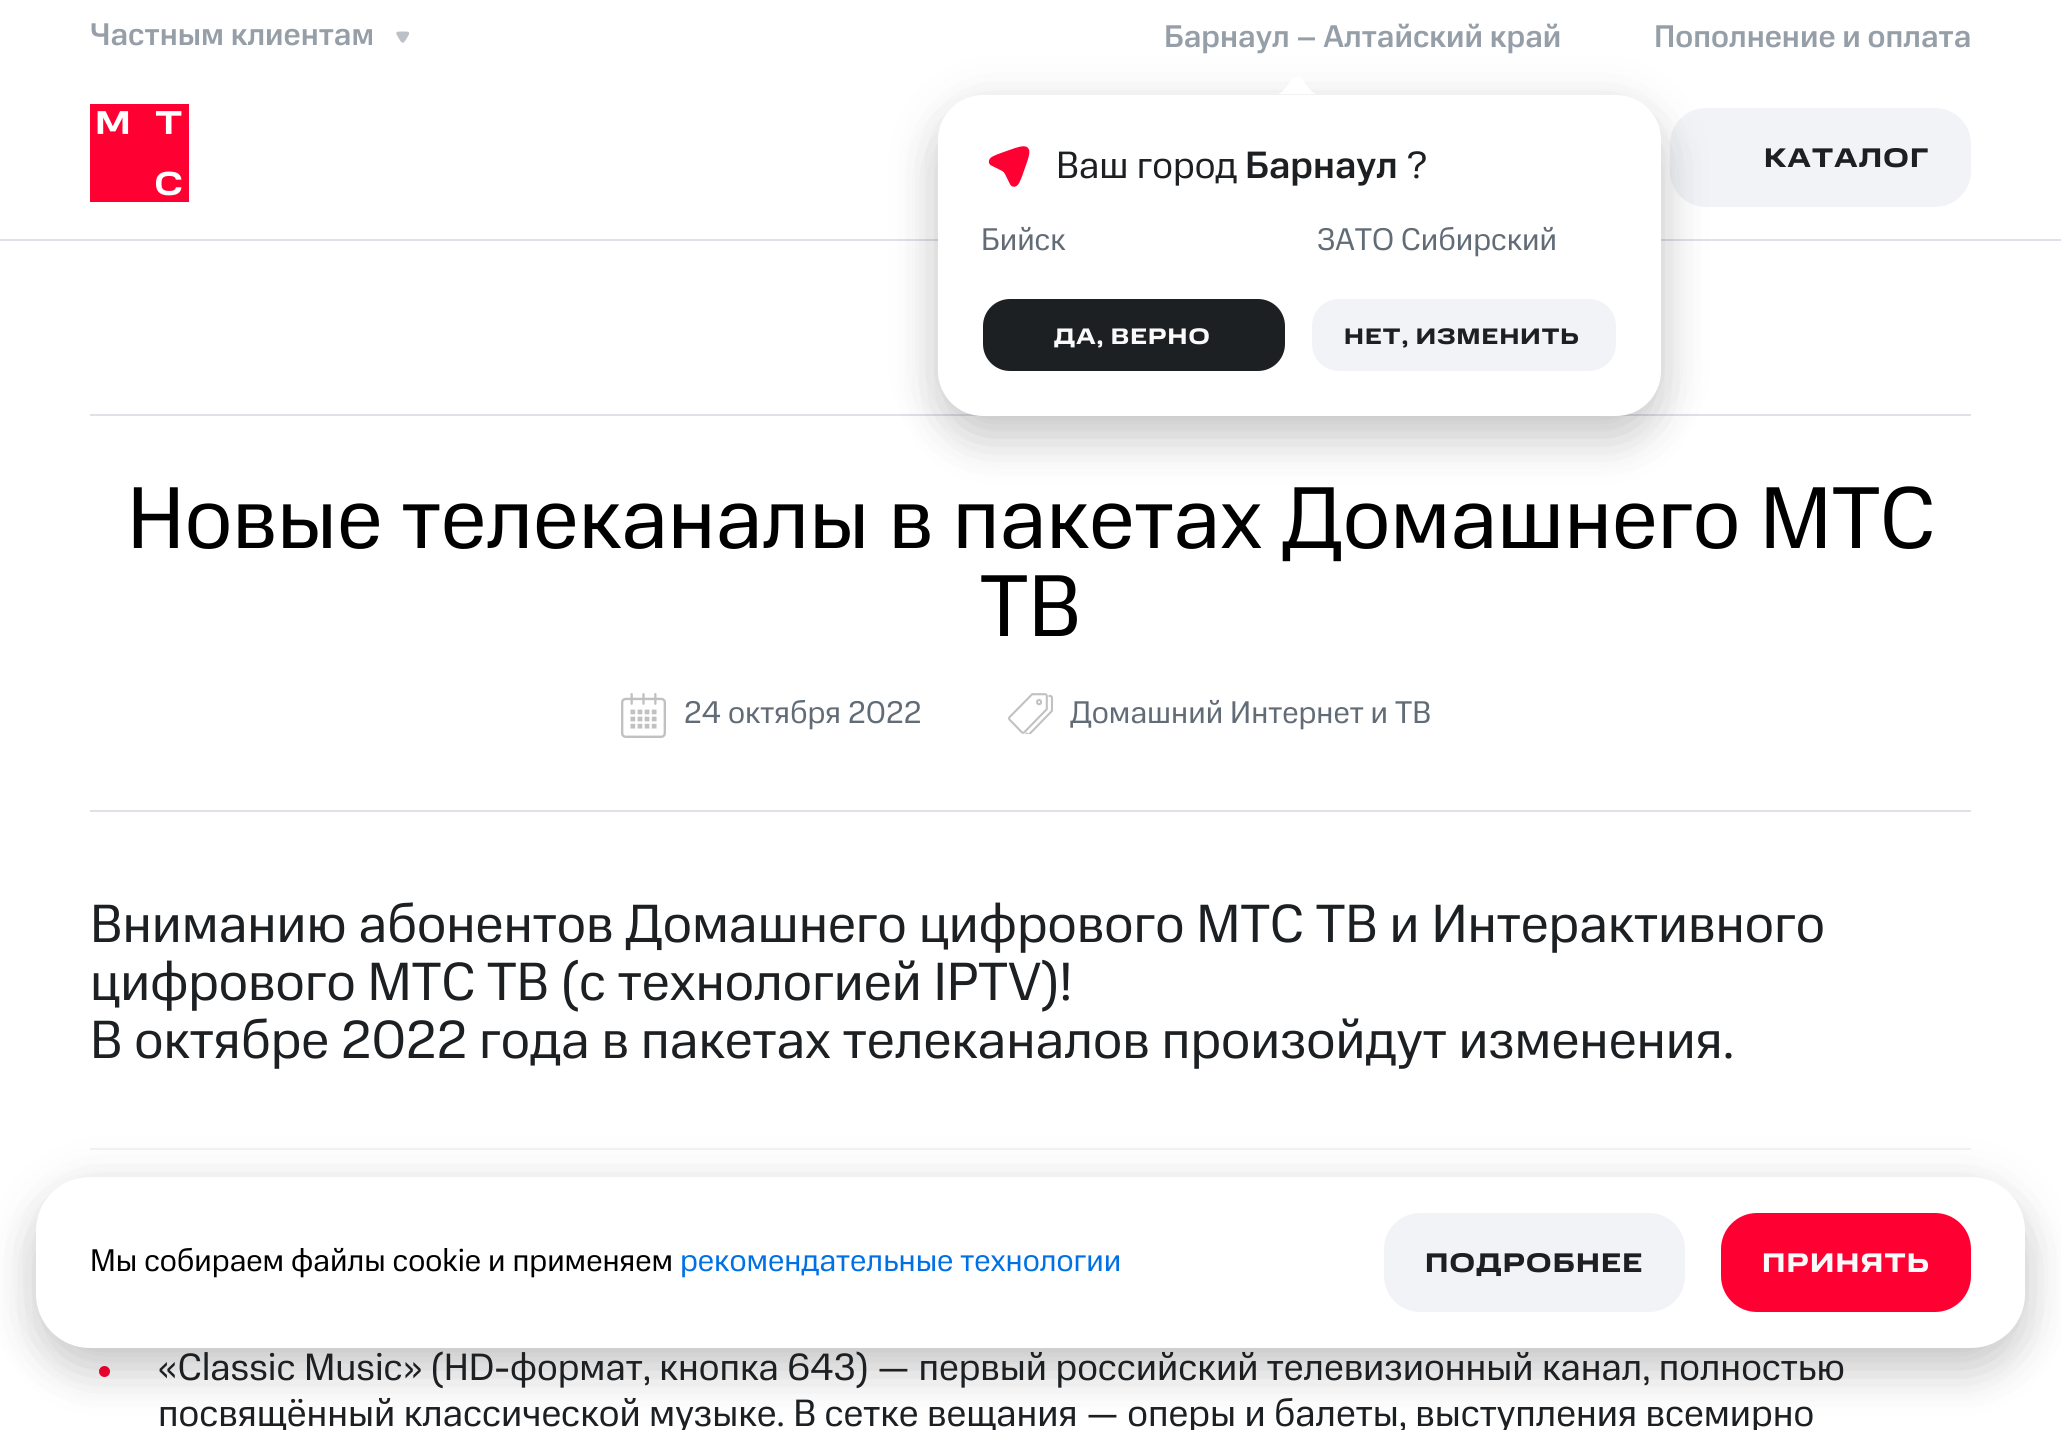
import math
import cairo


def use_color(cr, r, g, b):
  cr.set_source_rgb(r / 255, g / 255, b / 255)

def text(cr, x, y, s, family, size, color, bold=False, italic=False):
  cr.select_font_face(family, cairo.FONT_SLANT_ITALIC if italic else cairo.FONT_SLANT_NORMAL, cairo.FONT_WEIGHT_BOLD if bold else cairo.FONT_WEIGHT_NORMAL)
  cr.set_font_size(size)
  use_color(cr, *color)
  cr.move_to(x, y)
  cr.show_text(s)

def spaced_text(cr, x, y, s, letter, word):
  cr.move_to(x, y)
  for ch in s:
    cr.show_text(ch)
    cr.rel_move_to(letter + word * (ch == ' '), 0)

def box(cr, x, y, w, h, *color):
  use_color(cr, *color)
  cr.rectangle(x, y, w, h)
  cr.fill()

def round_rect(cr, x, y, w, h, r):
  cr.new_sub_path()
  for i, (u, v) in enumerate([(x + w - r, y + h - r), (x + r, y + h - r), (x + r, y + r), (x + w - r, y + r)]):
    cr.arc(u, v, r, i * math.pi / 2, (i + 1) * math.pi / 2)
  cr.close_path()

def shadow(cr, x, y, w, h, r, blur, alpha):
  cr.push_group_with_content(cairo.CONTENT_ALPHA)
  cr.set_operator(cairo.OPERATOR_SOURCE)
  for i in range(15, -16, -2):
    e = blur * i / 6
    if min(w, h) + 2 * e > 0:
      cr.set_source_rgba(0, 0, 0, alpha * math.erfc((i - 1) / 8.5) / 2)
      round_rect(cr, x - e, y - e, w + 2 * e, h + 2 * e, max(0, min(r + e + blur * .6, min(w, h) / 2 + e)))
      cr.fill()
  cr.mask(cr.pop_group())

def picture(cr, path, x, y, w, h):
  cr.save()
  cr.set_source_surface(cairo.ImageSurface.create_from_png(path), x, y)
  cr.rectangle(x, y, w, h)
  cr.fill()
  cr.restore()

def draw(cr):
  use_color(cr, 255, 255, 255)
  cr.paint()
  box(cr, 0, 239, 2061, 2, 222, 225, 232)
  picture(cr, "img_01.png", 396, 31, 14, 12)
  use_color(cr, 242, 243, 247)
  round_rect(cr, 1670, 108, 301, 99, 36)
  cr.fill()
  box(cr, 90, 414, 1881, 2, 222, 225, 232)
  use_color(cr, 0, 0, 0)
  shadow(cr, 938, 104, 723, 321, 45, 27, 0.12)
  shadow(cr, 938, 122, 723, 321, 45, 22.5, 0.14)
  cr.save()
  cr.rectangle(1231, 77, 135, 18)
  cr.clip()
  use_color(cr, 255, 255, 255)
  cr.set_fill_rule(cairo.FILL_RULE_EVEN_ODD)
  cr.new_path()
  cr.move_to(1297, 76)
  cr.curve_to(1291, 76, 1285, 94, 1277, 94)
  cr.line_to(1317, 94)
  cr.curve_to(1309, 94, 1303, 76, 1297, 76)
  cr.close_path()
  cr.fill()
  cr.restore()
  use_color(cr, 255, 255, 255)
  round_rect(cr, 938, 95, 723, 321, 45)
  cr.fill()
  picture(cr, "img_02.png", 988, 146, 42, 41)
  use_color(cr, 29, 32, 35)
  round_rect(cr, 983, 299, 302, 72, 27)
  cr.fill()
  use_color(cr, 242, 243, 247)
  round_rect(cr, 1312, 299, 304, 72, 27)
  cr.fill()
  picture(cr, "img_03.png", 90, 104, 99, 98)
  box(cr, 90, 810, 1881, 2, 222, 225, 232)
  picture(cr, "img_04.png", 621, 693, 45, 45)
  picture(cr, "img_05.png", 1008, 693, 45, 41)
  box(cr, 90, 1148, 1881, 2, 242, 242, 242)
  use_color(cr, 255, 0, 50)
  cr.arc(104.5, 1371.5, 5.5, 0, 2 * math.pi)
  cr.fill()
  use_color(cr, 0, 0, 0)
  shadow(cr, 36, 1204, 1989, 171, 54, 22.5, 0.14)
  shadow(cr, 36, 1186, 1989, 171, 54, 27, 0.12)
  use_color(cr, 255, 255, 255)
  round_rect(cr, 36, 1177, 1989, 171, 54)
  cr.fill()
  use_color(cr, 242, 243, 247)
  round_rect(cr, 1384, 1213, 301, 99, 36)
  cr.fill()
  use_color(cr, 255, 0, 50)
  round_rect(cr, 1721, 1213, 250, 99, 36)
  cr.fill()
  text(cr, 90, 45, "Частным клиентам", "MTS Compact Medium", 31.5, (150, 159, 168))
  text(cr, 1164, 47, "Барнаул – Алтайский край", "MTS Compact Medium", 31.5, (150, 159, 168))
  text(cr, 1056, 178, "Ваш город", "MTS Compact", 38.25, (29, 32, 35))
  text(cr, 1245, 178, "Барнаул", "MTS Compact Medium", 38.25, (29, 32, 35))
  text(cr, 1407, 178, "?", "MTS Compact", 38.25, (29, 32, 35))
  text(cr, 981, 250, "Бийск", "MTS Compact", 31.5, (98, 108, 119))
  text(cr, 1317, 250, "ЗАТО Сибирский", "MTS Compact", 31.5, (98, 108, 119))
  cr.select_font_face("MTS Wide", cairo.FONT_SLANT_NORMAL, cairo.FONT_WEIGHT_BOLD)
  cr.set_font_size(22.5)
  use_color(cr, 250, 250, 250)
  spaced_text(cr, 1054, 344, "ДА, ВЕРНО", 1.1, 0)
  use_color(cr, 29, 32, 35)
  spaced_text(cr, 1344, 344, "НЕТ, ИЗМЕНИТЬ", 1.1, 0)
  text(cr, 1654, 47, "Пополнение и оплата", "MTS Compact Medium", 31.5, (150, 159, 168))
  cr.select_font_face("MTS Wide", cairo.FONT_SLANT_NORMAL, cairo.FONT_WEIGHT_BOLD)
  cr.set_font_size(27)
  use_color(cr, 29, 32, 35)
  spaced_text(cr, 1764, 167, "КАТАЛОГ", 1.25, 0)
  text(cr, 127, 548, "Новые телеканалы в пакетах Домашнего МТС", "MTS Compact", 88, (0, 0, 0))
  text(cr, 980, 636, "ТВ", "MTS Compact", 88, (0, 0, 0))
  text(cr, 684, 723, "24 октября 2022", "MTS Compact", 31.5, (98, 108, 119))
  text(cr, 1070, 723, "Домашний Интернет и ТВ", "MTS Compact", 31.5, (98, 108, 119))
  text(cr, 90, 942, "Вниманию абонентов Домашнего цифрового МТС ТВ и Интерактивного", "MTS Compact", 54, (29, 32, 35))
  text(cr, 90, 1000, "цифрового МТС ТВ (с технологией IPTV)!", "MTS Compact", 54, (29, 32, 35))
  text(cr, 90, 1058, "В октябре 2022 года в пакетах телеканалов произойдут изменения.", "MTS Compact", 54, (29, 32, 35))
  text(cr, 158, 1380, "«Classic Music» (HD-формат, кнопка 643) — первый российский телевизионный канал, полностью", "MTS Compact", 38.25, (29, 32, 35))
  text(cr, 158, 1426, "посвящённый классической музыке. В сетке вещания — оперы и балеты, выступления всемирно", "MTS Compact", 38.25, (29, 32, 35))
  text(cr, 90, 1271, "Мы собираем файлы cookie и применяем", "MTS Compact", 31.5, (0, 0, 0))
  text(cr, 680, 1271, "рекомендательные технологии", "MTS Compact", 31.5, (0, 112, 229))
  cr.select_font_face("MTS Wide", cairo.FONT_SLANT_NORMAL, cairo.FONT_WEIGHT_BOLD)
  cr.set_font_size(27)
  use_color(cr, 29, 32, 35)
  spaced_text(cr, 1425, 1272, "ПОДРОБНЕЕ", 1.25, 0)
  use_color(cr, 250, 250, 250)
  spaced_text(cr, 1762, 1272, "ПРИНЯТЬ", 1.25, 0)


surface = cairo.ImageSurface(cairo.FORMAT_RGB24, 2061, 1430)
cr = cairo.Context(surface)
options = cairo.FontOptions()
options.set_hint_metrics(cairo.HINT_METRICS_OFF)
options.set_hint_style(cairo.HINT_STYLE_NONE)
cr.set_font_options(options)
cr.set_miter_limit(4)
draw(cr)
surface.write_to_png("out.png")
